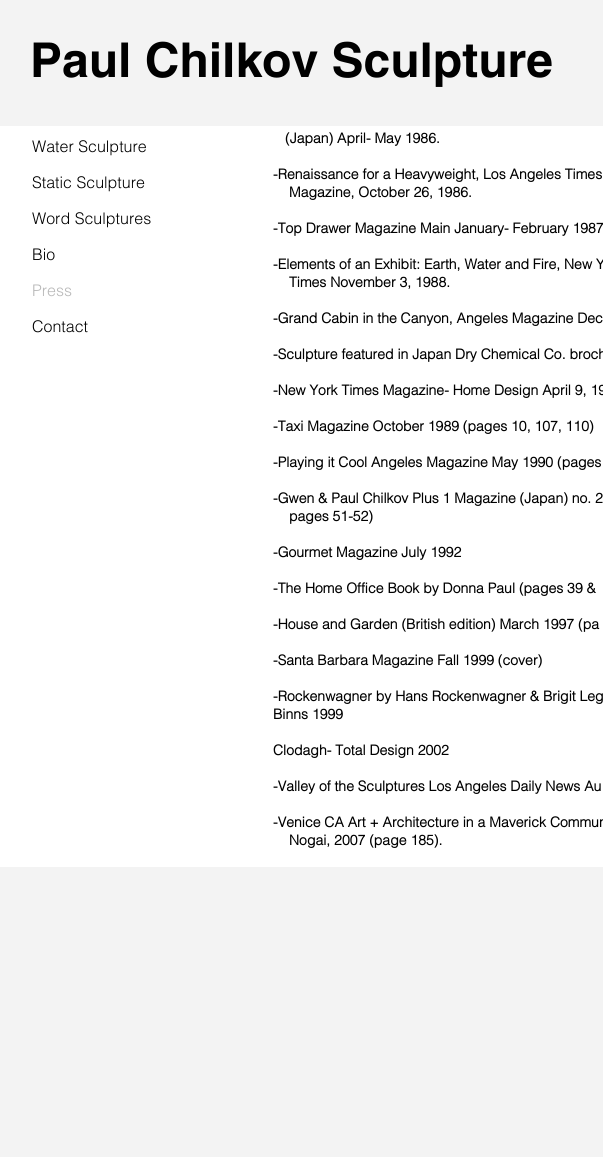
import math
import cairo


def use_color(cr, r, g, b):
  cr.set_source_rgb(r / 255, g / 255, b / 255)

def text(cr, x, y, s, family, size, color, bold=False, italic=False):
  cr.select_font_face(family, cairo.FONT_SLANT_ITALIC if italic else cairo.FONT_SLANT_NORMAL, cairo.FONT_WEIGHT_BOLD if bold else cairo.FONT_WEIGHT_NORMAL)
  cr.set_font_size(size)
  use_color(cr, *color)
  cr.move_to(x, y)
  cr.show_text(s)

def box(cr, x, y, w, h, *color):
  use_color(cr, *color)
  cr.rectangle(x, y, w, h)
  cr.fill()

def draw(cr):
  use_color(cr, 243, 243, 243)
  cr.paint()
  box(cr, 0, 126, 603, 741, 255, 255, 255)
  text(cr, 30, 77, "Paul Chilkov Sculpture", "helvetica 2", 48, (0, 0, 0), bold=True)
  text(cr, 32, 152, "Water Sculpture", "helvetica Light", 16, (0, 0, 0))
  text(cr, 32, 188, "Static Sculpture", "helvetica Light", 16, (0, 0, 0))
  text(cr, 32, 224, "Word Sculptures", "helvetica Light", 16, (0, 0, 0))
  text(cr, 32, 260, "Bio", "helvetica Light", 16, (0, 0, 0))
  text(cr, 32, 296, "Press", "helvetica Light", 16, (185, 185, 185))
  text(cr, 32, 332, "Contact", "helvetica Light", 16, (0, 0, 0))
  text(cr, 285, 143, "(Japan) April- May 1986.", "helvetica", 14, (0, 0, 0), bold=True)
  text(cr, 273, 179, "-Renaissance for a Heavyweight, Los Angeles Times", "helvetica", 14, (0, 0, 0), bold=True)
  text(cr, 289, 197, "Magazine, October 26, 1986.", "helvetica", 14, (0, 0, 0), bold=True)
  text(cr, 273, 233, "-Top Drawer Magazine Main January- February 1987", "helvetica", 14, (0, 0, 0), bold=True)
  text(cr, 273, 269, "-Elements of an Exhibit: Earth, Water and Fire, New Y", "helvetica", 14, (0, 0, 0), bold=True)
  text(cr, 289, 287, "Times November 3, 1988.", "helvetica", 14, (0, 0, 0), bold=True)
  text(cr, 273, 323, "-Grand Cabin in the Canyon, Angeles Magazine Dec", "helvetica", 14, (0, 0, 0), bold=True)
  text(cr, 273, 359, "-Sculpture featured in Japan Dry Chemical Co. broch", "helvetica", 14, (0, 0, 0), bold=True)
  text(cr, 273, 395, "-New York Times Magazine- Home Design April 9, 19", "helvetica", 14, (0, 0, 0), bold=True)
  text(cr, 273, 431, "-Taxi Magazine October 1989 (pages 10, 107, 110)", "helvetica", 14, (0, 0, 0), bold=True)
  text(cr, 273, 467, "-Playing it Cool Angeles Magazine May 1990 (pages", "helvetica", 14, (0, 0, 0), bold=True)
  text(cr, 273, 503, "-Gwen & Paul Chilkov Plus 1 Magazine (Japan) no. 2", "helvetica", 14, (0, 0, 0), bold=True)
  text(cr, 289, 521, "pages 51-52)", "helvetica", 14, (0, 0, 0), bold=True)
  text(cr, 273, 557, "-Gourmet Magazine July 1992", "helvetica", 14, (0, 0, 0), bold=True)
  text(cr, 273, 593, "-The Home Office Book by Donna Paul (pages 39 &", "helvetica", 14, (0, 0, 0), bold=True)
  text(cr, 273, 629, "-House and Garden (British edition) March 1997 (pa", "helvetica", 14, (0, 0, 0), bold=True)
  text(cr, 273, 665, "-Santa Barbara Magazine Fall 1999 (cover)", "helvetica", 14, (0, 0, 0), bold=True)
  text(cr, 273, 701, "-Rockenwagner by Hans Rockenwagner & Brigit Leg", "helvetica", 14, (0, 0, 0), bold=True)
  text(cr, 273, 719, "Binns 1999", "helvetica", 14, (0, 0, 0), bold=True)
  text(cr, 273, 755, "Clodagh- Total Design 2002", "helvetica", 14, (0, 0, 0), bold=True)
  text(cr, 273, 791, "-Valley of the Sculptures Los Angeles Daily News Au", "helvetica", 14, (0, 0, 0), bold=True)
  text(cr, 273, 827, "-Venice CA Art + Architecture in a Maverick Commun", "helvetica", 14, (0, 0, 0), bold=True)
  text(cr, 289, 845, "Nogai, 2007 (page 185).", "helvetica", 14, (0, 0, 0), bold=True)


surface = cairo.ImageSurface(cairo.FORMAT_RGB24, 603, 1157)
cr = cairo.Context(surface)
options = cairo.FontOptions()
options.set_hint_metrics(cairo.HINT_METRICS_OFF)
options.set_hint_style(cairo.HINT_STYLE_NONE)
cr.set_font_options(options)
cr.set_miter_limit(4)
draw(cr)
surface.write_to_png("out.png")
